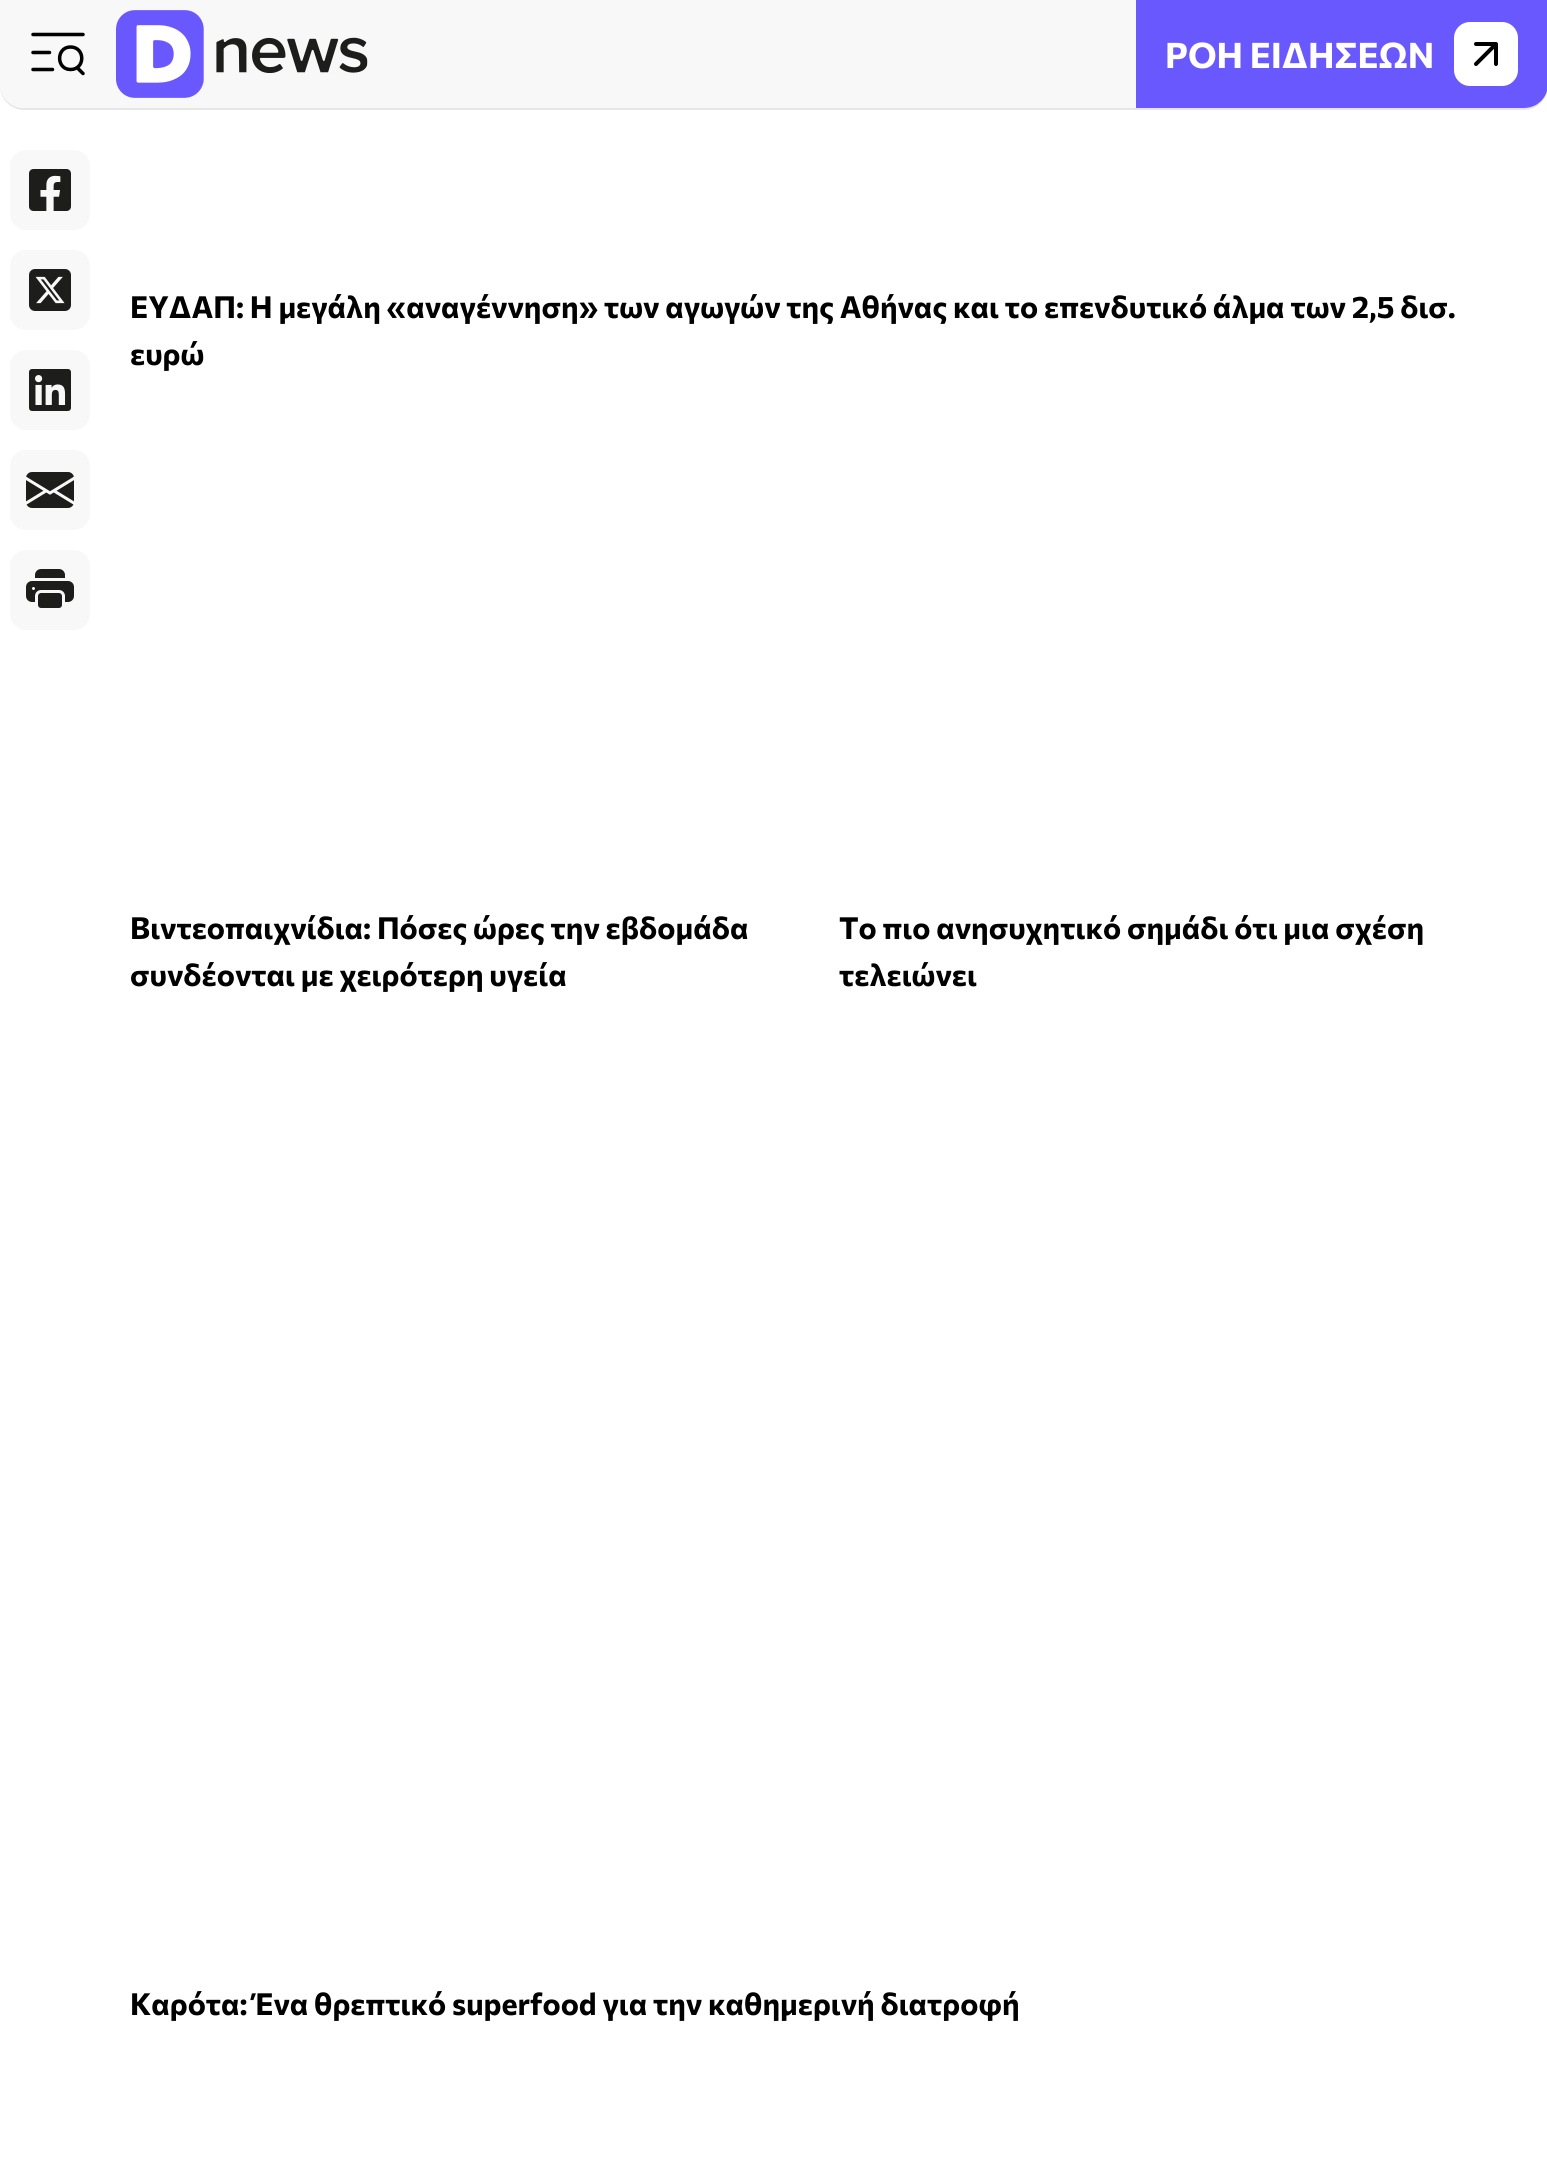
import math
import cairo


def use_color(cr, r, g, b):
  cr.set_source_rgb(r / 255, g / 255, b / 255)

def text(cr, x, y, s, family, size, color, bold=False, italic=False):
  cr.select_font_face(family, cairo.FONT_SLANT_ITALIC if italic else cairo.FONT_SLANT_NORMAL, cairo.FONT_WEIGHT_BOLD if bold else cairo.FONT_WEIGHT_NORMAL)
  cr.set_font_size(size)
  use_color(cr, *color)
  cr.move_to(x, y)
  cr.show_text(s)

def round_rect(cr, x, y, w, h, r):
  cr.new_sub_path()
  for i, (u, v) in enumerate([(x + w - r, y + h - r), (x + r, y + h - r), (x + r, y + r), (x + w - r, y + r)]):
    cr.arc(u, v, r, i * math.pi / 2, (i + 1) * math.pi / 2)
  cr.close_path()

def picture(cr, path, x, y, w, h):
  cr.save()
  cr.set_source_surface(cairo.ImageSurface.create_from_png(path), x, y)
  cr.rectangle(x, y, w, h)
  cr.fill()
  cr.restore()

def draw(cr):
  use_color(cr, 255, 255, 255)
  cr.paint()
  use_color(cr, 230, 230, 230)
  cr.new_path()
  cr.move_to(0, 84)
  cr.line_to(0, 86)
  cr.curve_to(0, 99, 11, 110, 24, 110)
  cr.line_to(1524, 110)
  cr.curve_to(1537, 110, 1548, 99, 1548, 86)
  cr.line_to(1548, 84)
  cr.curve_to(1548, 97, 1537, 108, 1524, 108)
  cr.line_to(24, 108)
  cr.curve_to(11, 108, 0, 97, 0, 84)
  cr.close_path()
  cr.fill()
  use_color(cr, 248, 248, 248)
  cr.new_path()
  cr.move_to(0, 0)
  cr.line_to(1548, 0)
  cr.line_to(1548, 84)
  cr.curve_to(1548, 97.5, 1537.5, 108, 1524, 108)
  cr.line_to(24, 108)
  cr.curve_to(10.5, 108, 0, 97.5, 0, 84)
  cr.close_path()
  cr.fill()
  cr.new_path()
  cr.move_to(33, 52.5)
  cr.line_to(49.5, 52.5)
  cr.move_to(33, 34.5)
  cr.line_to(83, 34.5)
  cr.move_to(33, 69.5)
  cr.line_to(52.5, 69.5)
  cr.move_to(83, 73.5)
  cr.line_to(77.5, 68)
  cr.move_to(70.5, 69.5)
  cr.curve_to(85.5, 69.5, 85.5, 47, 70.5, 47)
  cr.curve_to(56, 47, 56, 69.5, 70.5, 69.5)
  cr.close_path()
  use_color(cr, 0, 0, 0)
  cr.set_line_width(3.5)
  cr.set_line_cap(cairo.LINE_CAP_ROUND)
  cr.set_line_join(cairo.LINE_JOIN_ROUND)
  cr.stroke()
  picture(cr, "img_01.png", 116, 10, 252, 88)
  use_color(cr, 106, 88, 255)
  cr.new_path()
  cr.move_to(1136, 0)
  cr.line_to(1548, 0)
  cr.line_to(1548, 84)
  cr.curve_to(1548, 97.5, 1537.5, 108, 1524, 108)
  cr.line_to(1136, 108)
  cr.close_path()
  cr.fill()
  use_color(cr, 255, 255, 255)
  round_rect(cr, 1454, 22, 64, 64, 16)
  cr.fill()
  cr.new_path()
  cr.move_to(1476, 64)
  cr.line_to(1496, 44)
  cr.move_to(1476, 44)
  cr.line_to(1496, 44)
  cr.line_to(1496, 64)
  use_color(cr, 0, 0, 0)
  cr.set_line_width(4)
  cr.stroke()
  use_color(cr, 248, 248, 248)
  round_rect(cr, 10, 150, 80, 80, 16)
  cr.fill()
  picture(cr, "img_02.png", 29, 169, 42, 42)
  round_rect(cr, 10, 250, 80, 80, 16)
  cr.fill()
  picture(cr, "img_03.png", 29, 269, 42, 42)
  round_rect(cr, 10, 350, 80, 80, 16)
  cr.fill()
  picture(cr, "img_04.png", 29, 369, 42, 42)
  round_rect(cr, 10, 450, 80, 80, 16)
  cr.fill()
  picture(cr, "img_05.png", 26, 472, 48, 36)
  round_rect(cr, 10, 550, 80, 80, 16)
  cr.fill()
  picture(cr, "img_06.png", 26, 569, 48, 39)
  text(cr, 1165, 68, "ΡΟΗ ΕΙΔΗΣΕΩΝ", "Commissioner Thin", 35.25, (255, 255, 255))
  text(cr, 130, 318, "ΕΥΔΑΠ: Η μεγάλη «αναγέννηση» των αγωγών της Αθήνας και το επενδυτικό άλμα των 2,5 δισ.", "Commissioner Thin", 30.4, (0, 0, 0))
  text(cr, 130, 365, "ευρώ", "Commissioner Thin", 30.4, (0, 0, 0))
  text(cr, 130, 939, "Βιντεοπαιχνίδια: Πόσες ώρες την εβδομάδα", "Commissioner Thin", 30.4, (0, 0, 0))
  text(cr, 130, 986, "συνδέονται με χειρότερη υγεία", "Commissioner Thin", 30.4, (0, 0, 0))
  text(cr, 839, 939, "Το πιο ανησυχητικό σημάδι ότι μια σχέση", "Commissioner Thin", 30.4, (0, 0, 0))
  text(cr, 839, 986, "τελειώνει", "Commissioner Thin", 30.4, (0, 0, 0))
  text(cr, 130, 2015, "Καρότα: Ένα θρεπτικό superfood για την καθημερινή διατροφή", "Commissioner Thin", 30.4, (0, 0, 0))


surface = cairo.ImageSurface(cairo.FORMAT_RGB24, 1547, 2173)
cr = cairo.Context(surface)
options = cairo.FontOptions()
options.set_hint_metrics(cairo.HINT_METRICS_OFF)
options.set_hint_style(cairo.HINT_STYLE_NONE)
cr.set_font_options(options)
cr.set_miter_limit(4)
draw(cr)
surface.write_to_png("out.png")
